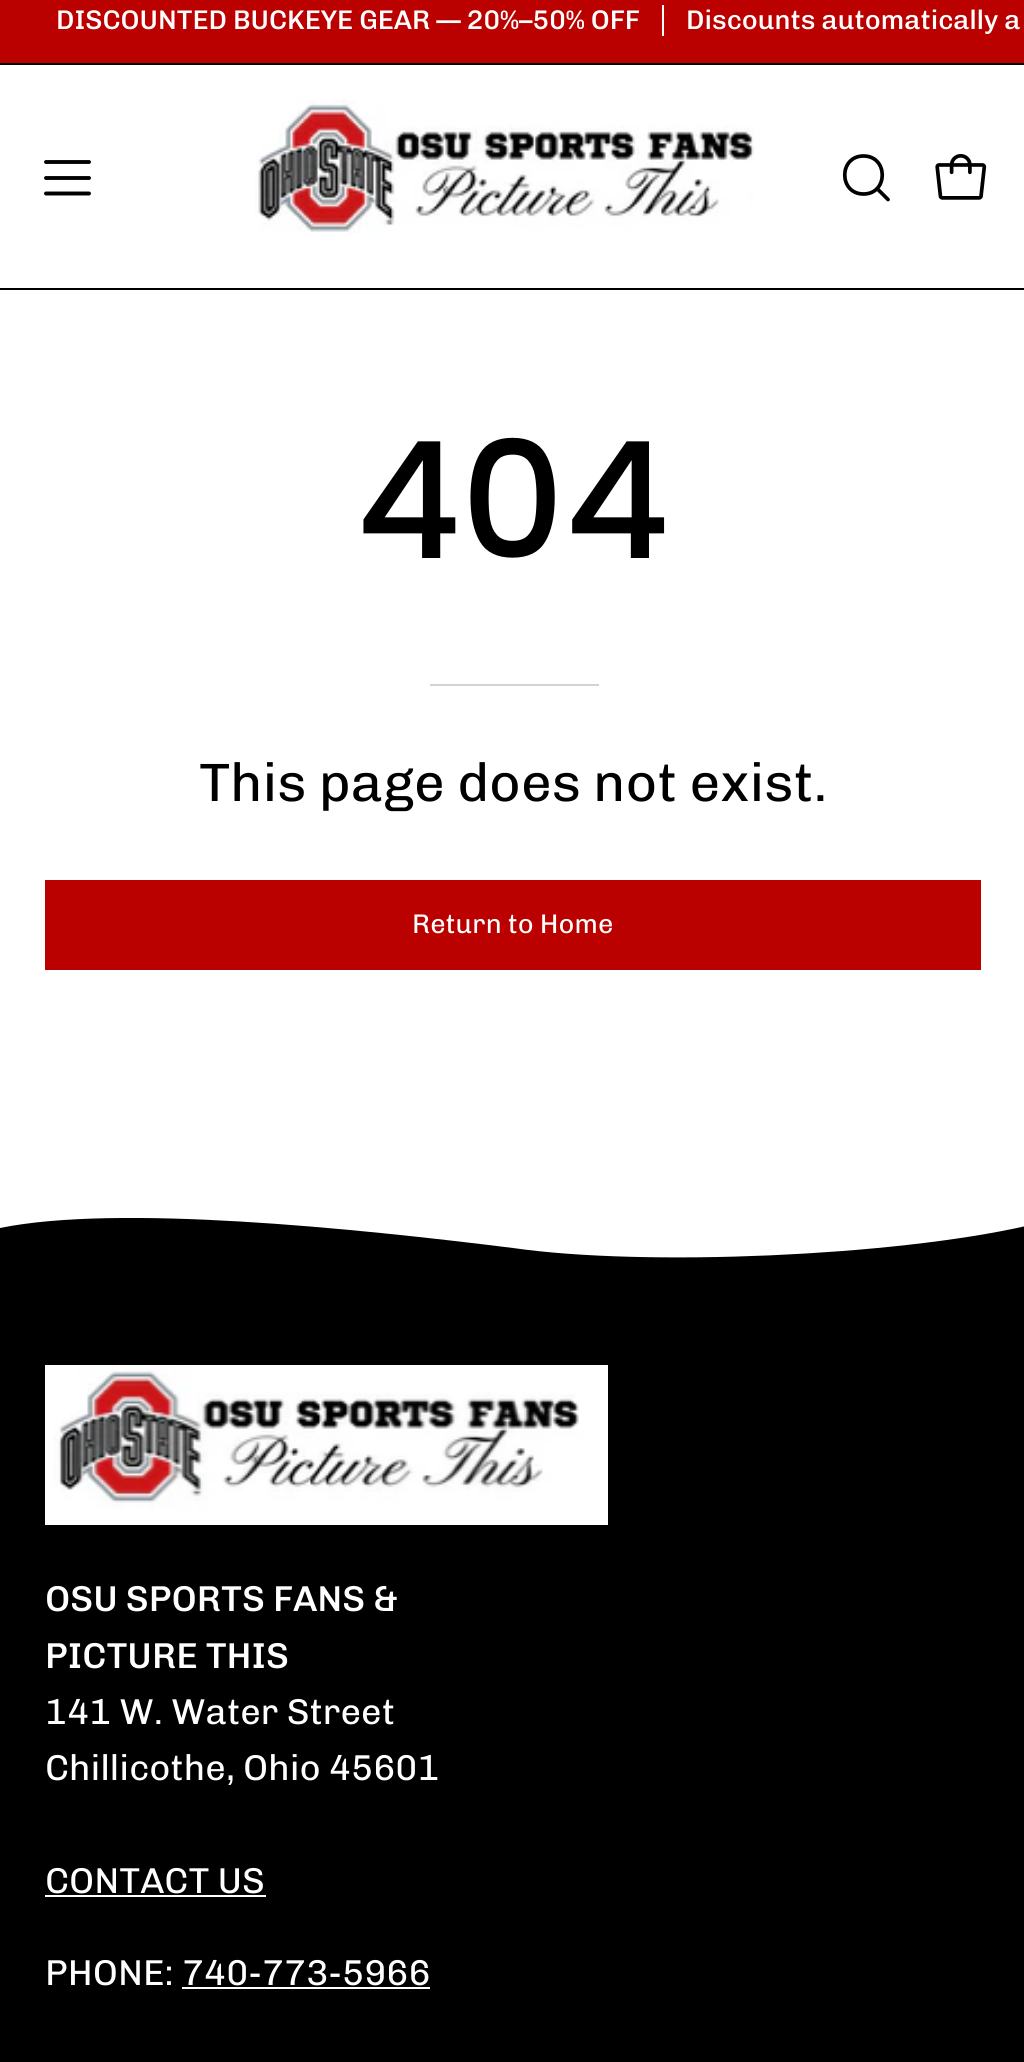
import math
import cairo


def use_color(cr, r, g, b):
  cr.set_source_rgb(r / 255, g / 255, b / 255)

def text(cr, x, y, s, family, size, color, bold=False, italic=False):
  cr.select_font_face(family, cairo.FONT_SLANT_ITALIC if italic else cairo.FONT_SLANT_NORMAL, cairo.FONT_WEIGHT_BOLD if bold else cairo.FONT_WEIGHT_NORMAL)
  cr.set_font_size(size)
  use_color(cr, *color)
  cr.move_to(x, y)
  cr.show_text(s)

def box(cr, x, y, w, h, *color):
  use_color(cr, *color)
  cr.rectangle(x, y, w, h)
  cr.fill()

def picture(cr, path, x, y, w, h):
  cr.save()
  cr.set_source_surface(cairo.ImageSurface.create_from_png(path), x, y)
  cr.rectangle(x, y, w, h)
  cr.fill()
  cr.restore()

def draw(cr):
  use_color(cr, 255, 255, 255)
  cr.paint()
  box(cr, 0, 0, 1024, 63, 187, 0, 0)
  box(cr, 0, 63, 1024, 2, 0, 0, 0)
  box(cr, 662, 5, 2, 31, 255, 252, 252)
  cr.new_path()
  cr.move_to(46, 178)
  cr.line_to(89, 178)
  cr.move_to(46, 162)
  cr.line_to(89, 162)
  cr.move_to(46, 193.5)
  cr.line_to(89, 193.5)
  use_color(cr, 0, 0, 0)
  cr.set_line_width(3.9)
  cr.set_line_cap(cairo.LINE_CAP_ROUND)
  cr.set_line_join(cairo.LINE_JOIN_ROUND)
  cr.stroke()
  picture(cr, "img_01.png", 255, 98, 500, 135)
  cr.new_path()
  cr.move_to(863.5, 194)
  cr.curve_to(888.5, 194, 888.5, 156, 863.5, 156)
  cr.curve_to(838.5, 156, 838.5, 194, 863.5, 194)
  cr.close_path()
  cr.move_to(877, 188.5)
  cr.line_to(888, 199.5)
  cr.set_line_width(3.7)
  cr.stroke()
  picture(cr, "img_02.png", 935, 154, 52, 46)
  box(cr, 0, 288, 1024, 2, 0, 0, 0)
  box(cr, 430, 684, 169, 2, 211, 211, 211)
  box(cr, 45, 880, 936, 90, 187, 0, 0)
  box(cr, 0, 1280, 1024, 782, 0, 0, 0)
  cr.save()
  cr.rectangle(0, 1217, 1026, 63)
  cr.clip()
  cr.new_path()
  cr.move_to(0, 1228)
  cr.curve_to(117, 1204, 352, 1228, 513, 1248)
  cr.curve_to(645, 1267, 894, 1256, 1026, 1226)
  cr.line_to(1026, 1281)
  cr.line_to(0, 1281)
  cr.fill()
  cr.restore()
  picture(cr, "img_03.png", 45, 1365, 563, 160)
  box(cr, 45, 1895, 221, 2, 255, 255, 255)
  box(cr, 182, 1987, 248, 2, 255, 255, 255)
  text(cr, 56, 29, "DISCOUNTED BUCKEYE GEAR — 20%–50% OFF", "Chivo Medium", 27, (255, 255, 255))
  text(cr, 686, 29, "Discounts automatically a", "Chivo Medium", 27, (255, 255, 255))
  text(cr, 356, 558, "404", "Poppins Medium", 162, (0, 0, 0))
  text(cr, 199, 801, "This page does not exist.", "Chivo", 54, (0, 0, 0))
  text(cr, 412, 933, "Return to Home", "Chivo", 27, (255, 255, 255))
  text(cr, 45, 1611, "OSU SPORTS FANS &", "Chivo Medium", 36, (255, 255, 255))
  text(cr, 45, 1668, "PICTURE THIS", "Chivo Medium", 36, (255, 255, 255))
  text(cr, 45, 1724, "141 W. Water Street", "Chivo", 36, (255, 255, 255))
  text(cr, 45, 1780, "Chillicothe, Ohio 45601", "Chivo", 36, (255, 255, 255))
  text(cr, 45, 1893, "CONTACT US", "Chivo", 36, (255, 255, 255))
  text(cr, 45, 1985, "PHONE: 740-773-5966", "Chivo", 36, (255, 255, 255))


surface = cairo.ImageSurface(cairo.FORMAT_RGB24, 1024, 2062)
cr = cairo.Context(surface)
options = cairo.FontOptions()
options.set_hint_metrics(cairo.HINT_METRICS_OFF)
options.set_hint_style(cairo.HINT_STYLE_NONE)
cr.set_font_options(options)
cr.set_miter_limit(4)
draw(cr)
surface.write_to_png("out.png")
